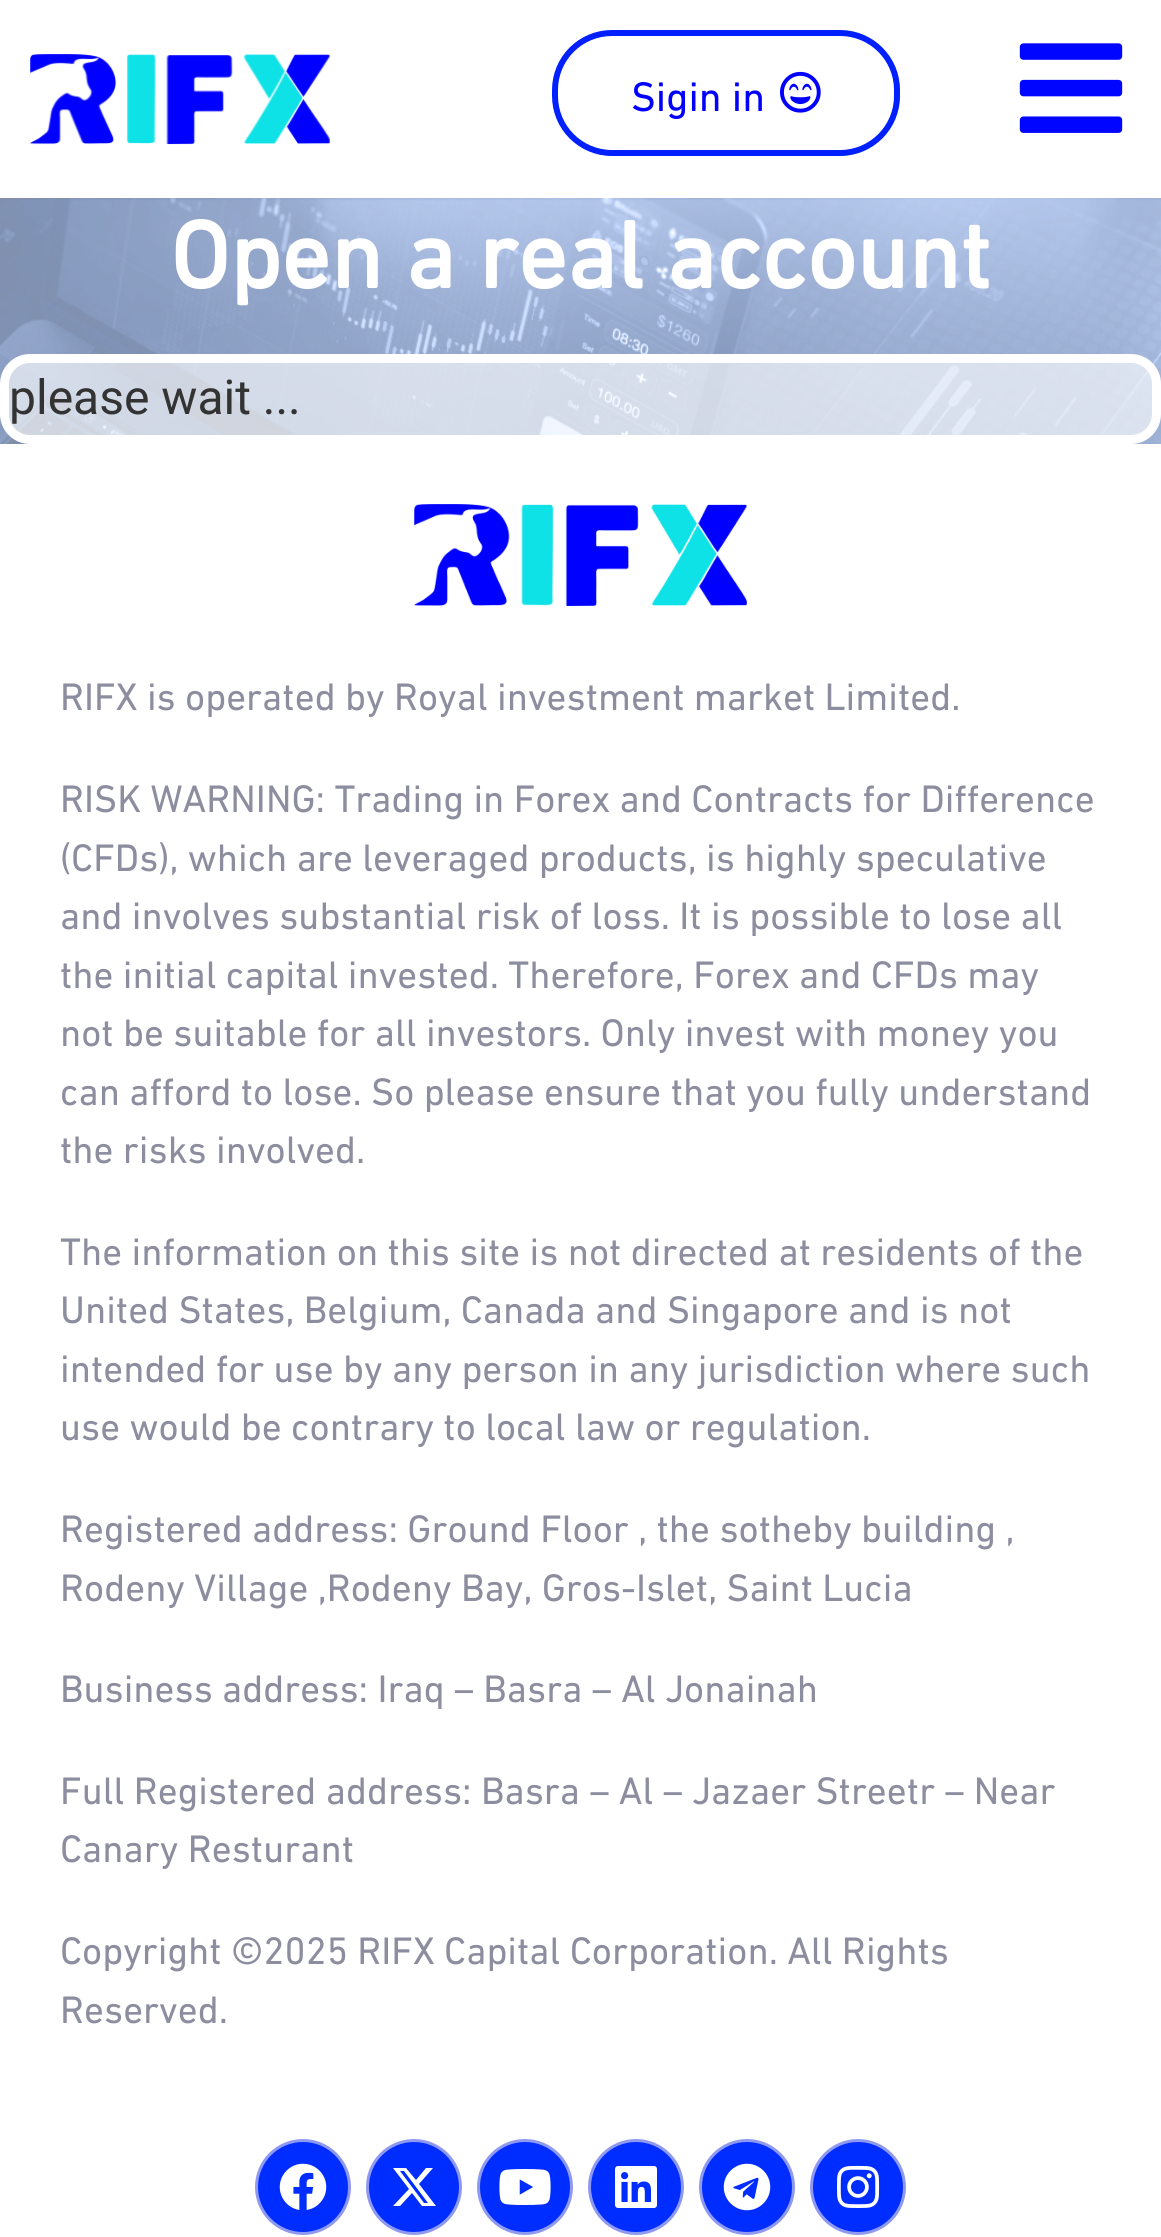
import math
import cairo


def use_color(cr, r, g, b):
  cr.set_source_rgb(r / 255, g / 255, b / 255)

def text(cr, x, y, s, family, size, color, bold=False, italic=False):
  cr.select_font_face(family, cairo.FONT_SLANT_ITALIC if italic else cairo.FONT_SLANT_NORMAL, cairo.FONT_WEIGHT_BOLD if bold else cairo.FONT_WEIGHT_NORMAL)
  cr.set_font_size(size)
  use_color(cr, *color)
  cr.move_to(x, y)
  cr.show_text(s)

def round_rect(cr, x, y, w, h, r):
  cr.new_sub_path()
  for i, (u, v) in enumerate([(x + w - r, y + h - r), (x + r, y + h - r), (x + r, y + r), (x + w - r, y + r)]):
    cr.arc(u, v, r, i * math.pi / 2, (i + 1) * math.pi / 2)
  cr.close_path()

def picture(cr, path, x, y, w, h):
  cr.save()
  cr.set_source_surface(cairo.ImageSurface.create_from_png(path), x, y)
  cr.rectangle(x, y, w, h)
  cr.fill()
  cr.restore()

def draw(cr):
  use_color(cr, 255, 255, 255)
  cr.paint()
  picture(cr, "img_01.png", 30, 54, 300, 91)
  round_rect(cr, 555, 33, 342, 120, 57)
  use_color(cr, 0, 32, 255)
  cr.set_line_width(6)
  cr.stroke()
  picture(cr, "img_02.png", 780, 71, 41, 42)
  picture(cr, "img_03.png", 1019, 43, 104, 90)
  picture(cr, "img_04.png", 0, 198, 1161, 246)
  cr.set_source_rgba(1, 1, 1, 0.63)
  round_rect(cr, 4.5, 358.5, 1152, 81, 25.5)
  cr.fill_preserve()
  use_color(cr, 255, 255, 255)
  cr.set_line_width(9)
  cr.stroke()
  picture(cr, "img_05.png", 414, 504, 333, 102)
  use_color(cr, 0, 45, 255)
  cr.arc(303, 2187, 46.5, 0, 2 * math.pi)
  cr.fill_preserve()
  use_color(cr, 143, 153, 240)
  cr.set_line_width(3)
  cr.stroke()
  picture(cr, "img_06.png", 279, 2163, 48, 47)
  use_color(cr, 0, 45, 255)
  cr.arc(414, 2187, 46.5, 0, 2 * math.pi)
  cr.fill_preserve()
  use_color(cr, 143, 153, 240)
  cr.stroke()
  use_color(cr, 255, 255, 255)
  cr.new_path()
  cr.move_to(426, 2168)
  cr.line_to(433, 2168)
  cr.line_to(419, 2184)
  cr.line_to(436, 2206)
  cr.line_to(422, 2206)
  cr.line_to(412, 2193)
  cr.line_to(400, 2206)
  cr.line_to(393, 2206)
  cr.line_to(409, 2189)
  cr.line_to(393, 2168)
  cr.line_to(406, 2168)
  cr.line_to(416, 2180)
  cr.close_path()
  cr.move_to(424, 2203)
  cr.line_to(428, 2203)
  cr.line_to(404, 2171)
  cr.line_to(400, 2171)
  cr.close_path()
  cr.fill()
  use_color(cr, 0, 45, 255)
  cr.arc(525, 2187, 46.5, 0, 2 * math.pi)
  cr.fill_preserve()
  use_color(cr, 143, 153, 240)
  cr.stroke()
  picture(cr, "img_07.png", 499, 2169, 52, 36)
  use_color(cr, 0, 45, 255)
  cr.arc(636, 2187, 46.5, 0, 2 * math.pi)
  cr.fill_preserve()
  use_color(cr, 143, 153, 240)
  cr.stroke()
  picture(cr, "img_08.png", 615, 2166, 42, 42)
  use_color(cr, 0, 45, 255)
  cr.arc(747, 2187, 46.5, 0, 2 * math.pi)
  cr.fill_preserve()
  use_color(cr, 143, 153, 240)
  cr.stroke()
  picture(cr, "img_09.png", 723, 2163, 48, 48)
  use_color(cr, 0, 45, 255)
  cr.arc(858, 2187, 46.5, 0, 2 * math.pi)
  cr.fill_preserve()
  use_color(cr, 143, 153, 240)
  cr.stroke()
  picture(cr, "img_10.png", 837, 2165, 43, 43)
  text(cr, 631, 111, "Sigin in", "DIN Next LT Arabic", 42, (1, 0, 255))
  text(cr, 170, 288, "Open a real account", "DIN Next LT Arabic", 96, (255, 255, 255), bold=True)
  text(cr, 9, 414, "please wait ...", "Roboto", 48, (51, 51, 51))
  text(cr, 60, 710, "RIFX is operated by Royal investment market Limited.", "DIN Next LT Arabic", 39, (141, 141, 160))
  text(cr, 60, 812, "RISK WARNING: Trading in Forex and Contracts for Difference", "DIN Next LT Arabic", 39, (141, 141, 160))
  text(cr, 60, 871, "(CFDs), which are leveraged products, is highly speculative", "DIN Next LT Arabic", 39, (141, 141, 160))
  text(cr, 60, 929, "and involves substantial risk of loss. It is possible to lose all", "DIN Next LT Arabic", 39, (141, 141, 160))
  text(cr, 60, 988, "the initial capital invested. Therefore, Forex and CFDs may", "DIN Next LT Arabic", 39, (141, 141, 160))
  text(cr, 60, 1046, "not be suitable for all investors. Only invest with money you", "DIN Next LT Arabic", 39, (141, 141, 160))
  text(cr, 60, 1105, "can afford to lose. So please ensure that you fully understand", "DIN Next LT Arabic", 39, (141, 141, 160))
  text(cr, 60, 1163, "the risks involved.", "DIN Next LT Arabic", 39, (141, 141, 160))
  text(cr, 60, 1265, "The information on this site is not directed at residents of the", "DIN Next LT Arabic", 39, (141, 141, 160))
  text(cr, 60, 1323, "United States, Belgium, Canada and Singapore and is not", "DIN Next LT Arabic", 39, (141, 141, 160))
  text(cr, 60, 1382, "intended for use by any person in any jurisdiction where such", "DIN Next LT Arabic", 39, (141, 141, 160))
  text(cr, 60, 1440, "use would be contrary to local law or regulation.", "DIN Next LT Arabic", 39, (141, 141, 160))
  text(cr, 60, 1542, "Registered address: Ground Floor , the sotheby building ,", "DIN Next LT Arabic", 39, (141, 141, 160))
  text(cr, 60, 1601, "Rodeny Village ,Rodeny Bay, Gros-Islet, Saint Lucia", "DIN Next LT Arabic", 39, (141, 141, 160))
  text(cr, 60, 1702, "Business address: Iraq – Basra – Al Jonainah", "DIN Next LT Arabic", 39, (141, 141, 160))
  text(cr, 60, 1804, "Full Registered address: Basra – Al – Jazaer Streetr – Near", "DIN Next LT Arabic", 39, (141, 141, 160))
  text(cr, 60, 1862, "Canary Resturant", "DIN Next LT Arabic", 39, (141, 141, 160))
  text(cr, 60, 1964, "Copyright ©2025 RIFX Capital Corporation. All Rights", "DIN Next LT Arabic", 39, (141, 141, 160))
  text(cr, 60, 2023, "Reserved.", "DIN Next LT Arabic", 39, (141, 141, 160))


surface = cairo.ImageSurface(cairo.FORMAT_RGB24, 1161, 2237)
cr = cairo.Context(surface)
options = cairo.FontOptions()
options.set_hint_metrics(cairo.HINT_METRICS_OFF)
options.set_hint_style(cairo.HINT_STYLE_NONE)
cr.set_font_options(options)
cr.set_miter_limit(4)
draw(cr)
surface.write_to_png("out.png")
